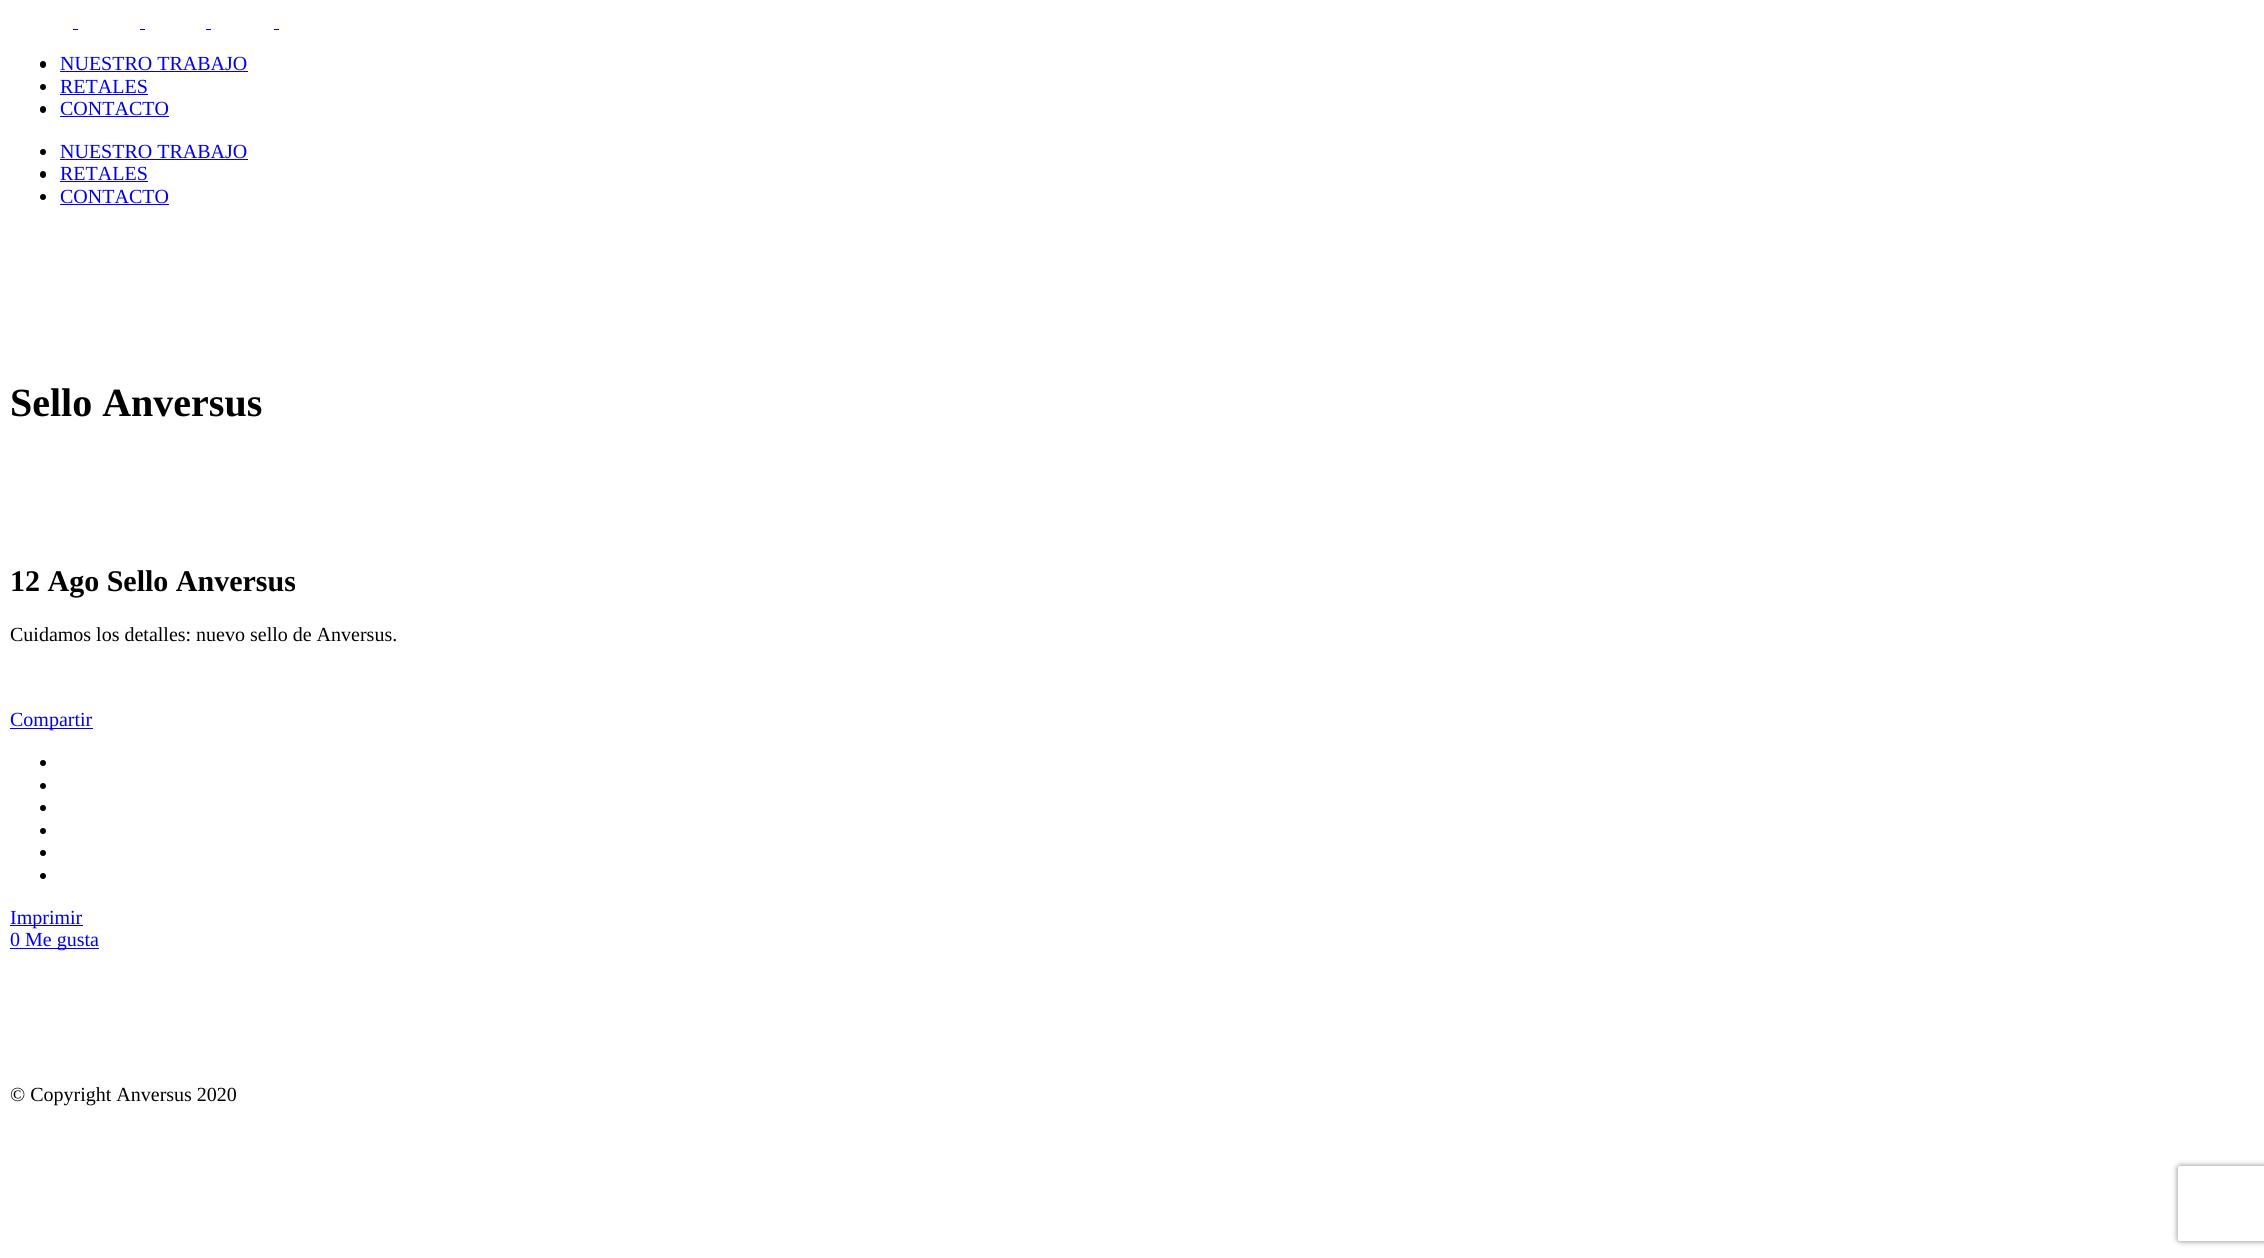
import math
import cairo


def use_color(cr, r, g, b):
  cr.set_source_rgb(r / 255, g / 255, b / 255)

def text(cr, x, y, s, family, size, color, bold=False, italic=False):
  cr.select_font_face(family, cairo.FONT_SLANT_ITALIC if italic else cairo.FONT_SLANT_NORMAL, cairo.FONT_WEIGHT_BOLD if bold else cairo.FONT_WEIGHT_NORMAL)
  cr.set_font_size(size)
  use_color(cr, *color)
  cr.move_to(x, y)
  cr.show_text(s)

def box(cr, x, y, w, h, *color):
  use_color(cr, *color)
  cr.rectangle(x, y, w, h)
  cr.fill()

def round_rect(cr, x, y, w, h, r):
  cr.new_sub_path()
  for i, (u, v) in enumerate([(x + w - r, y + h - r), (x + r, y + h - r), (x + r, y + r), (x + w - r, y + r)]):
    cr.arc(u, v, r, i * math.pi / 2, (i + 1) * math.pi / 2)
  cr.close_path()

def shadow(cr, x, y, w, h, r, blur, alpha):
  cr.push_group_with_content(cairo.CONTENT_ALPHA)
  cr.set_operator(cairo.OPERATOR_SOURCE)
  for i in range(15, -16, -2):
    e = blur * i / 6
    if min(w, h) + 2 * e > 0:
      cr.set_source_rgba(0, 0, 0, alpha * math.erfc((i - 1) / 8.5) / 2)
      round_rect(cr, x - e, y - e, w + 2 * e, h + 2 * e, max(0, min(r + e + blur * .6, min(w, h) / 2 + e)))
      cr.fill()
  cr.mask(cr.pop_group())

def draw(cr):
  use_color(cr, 255, 255, 255)
  cr.paint()
  box(cr, 73, 29, 5, 1, 0, 0, 238)
  box(cr, 140, 29, 5, 1, 0, 0, 238)
  box(cr, 206, 29, 5, 1, 0, 0, 238)
  box(cr, 274, 29, 5, 1, 0, 0, 238)
  use_color(cr, 0, 0, 0)
  round_rect(cr, 40, 61, 6, 7, 3)
  cr.fill()
  box(cr, 60, 71, 188, 1, 0, 0, 238)
  use_color(cr, 0, 0, 0)
  cr.arc(43, 87, 3, 0, 2 * math.pi)
  cr.fill()
  box(cr, 60, 94, 88, 1, 0, 0, 238)
  use_color(cr, 0, 0, 0)
  round_rect(cr, 40, 106, 6, 7, 3)
  cr.fill()
  box(cr, 60, 116, 109, 1, 0, 0, 238)
  use_color(cr, 0, 0, 0)
  cr.arc(43, 152, 3, 0, 2 * math.pi)
  cr.fill()
  box(cr, 60, 159, 188, 1, 0, 0, 238)
  use_color(cr, 0, 0, 0)
  round_rect(cr, 40, 171, 6, 7, 3)
  cr.fill()
  box(cr, 60, 181, 88, 1, 0, 0, 238)
  use_color(cr, 0, 0, 0)
  cr.arc(43, 197, 3, 0, 2 * math.pi)
  cr.fill()
  box(cr, 60, 204, 109, 1, 0, 0, 238)
  box(cr, 10, 728, 83, 1, 0, 0, 238)
  use_color(cr, 0, 0, 0)
  cr.arc(43, 763, 3, 0, 2 * math.pi)
  cr.fill()
  cr.arc(43, 786, 3, 0, 2 * math.pi)
  cr.fill()
  cr.arc(43, 808, 3, 0, 2 * math.pi)
  cr.fill()
  cr.arc(43, 831, 3, 0, 2 * math.pi)
  cr.fill()
  cr.arc(43, 853, 3, 0, 2 * math.pi)
  cr.fill()
  cr.arc(43, 876, 3, 0, 2 * math.pi)
  cr.fill()
  box(cr, 10, 925, 73, 1, 0, 0, 238)
  box(cr, 10, 948, 89, 1, 0, 0, 238)
  cr.save()
  cr.set_fill_rule(cairo.FILL_RULE_EVEN_ODD)
  cr.new_path()
  cr.move_to(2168, 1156)
  cr.line_to(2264, 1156)
  cr.line_to(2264, 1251)
  cr.line_to(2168, 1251)
  cr.close_path()
  cr.move_to(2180.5, 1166)
  cr.line_to(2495.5, 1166)
  cr.curve_to(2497, 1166, 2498, 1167, 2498, 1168.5)
  cr.line_to(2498, 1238.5)
  cr.curve_to(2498, 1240, 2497, 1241, 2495.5, 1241)
  cr.line_to(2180.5, 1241)
  cr.curve_to(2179, 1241, 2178, 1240, 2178, 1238.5)
  cr.line_to(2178, 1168.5)
  cr.curve_to(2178, 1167, 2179, 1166, 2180.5, 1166)
  cr.close_path()
  cr.clip()
  use_color(cr, 128, 128, 128)
  shadow(cr, 2178, 1166, 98, 75, 2.5, 3, 1)
  cr.restore()
  text(cr, 60, 70, "NUESTRO TRABAJO", "Liberation Serif", 20, (0, 0, 238))
  text(cr, 60, 93, "RETALES", "Liberation Serif", 20, (0, 0, 238))
  text(cr, 60, 115, "CONTACTO", "Liberation Serif", 20, (0, 0, 238))
  text(cr, 60, 158, "NUESTRO TRABAJO", "Liberation Serif", 20, (0, 0, 238))
  text(cr, 60, 180, "RETALES", "Liberation Serif", 20, (0, 0, 238))
  text(cr, 60, 203, "CONTACTO", "Liberation Serif", 20, (0, 0, 238))
  text(cr, 10, 416, "Sello Anversus", "Liberation Serif", 40, (0, 0, 0), bold=True)
  text(cr, 10, 591, "12 Ago Sello Anversus", "Liberation Serif", 30, (0, 0, 0), bold=True)
  text(cr, 10, 641, "Cuidamos los detalles: nuevo sello de Anversus.", "Liberation Serif", 20, (0, 0, 0))
  text(cr, 10, 726, "Compartir", "Liberation Serif", 20, (0, 0, 238))
  text(cr, 10, 924, "Imprimir", "Liberation Serif", 20, (0, 0, 238))
  text(cr, 10, 946, "0 Me gusta", "Liberation Serif", 20, (0, 0, 238))
  text(cr, 10, 1101, "© Copyright Anversus 2020", "Liberation Serif", 20, (0, 0, 0))


surface = cairo.ImageSurface(cairo.FORMAT_RGB24, 2264, 1258)
cr = cairo.Context(surface)
options = cairo.FontOptions()
options.set_hint_metrics(cairo.HINT_METRICS_OFF)
options.set_hint_style(cairo.HINT_STYLE_NONE)
cr.set_font_options(options)
cr.set_miter_limit(4)
draw(cr)
surface.write_to_png("out.png")
